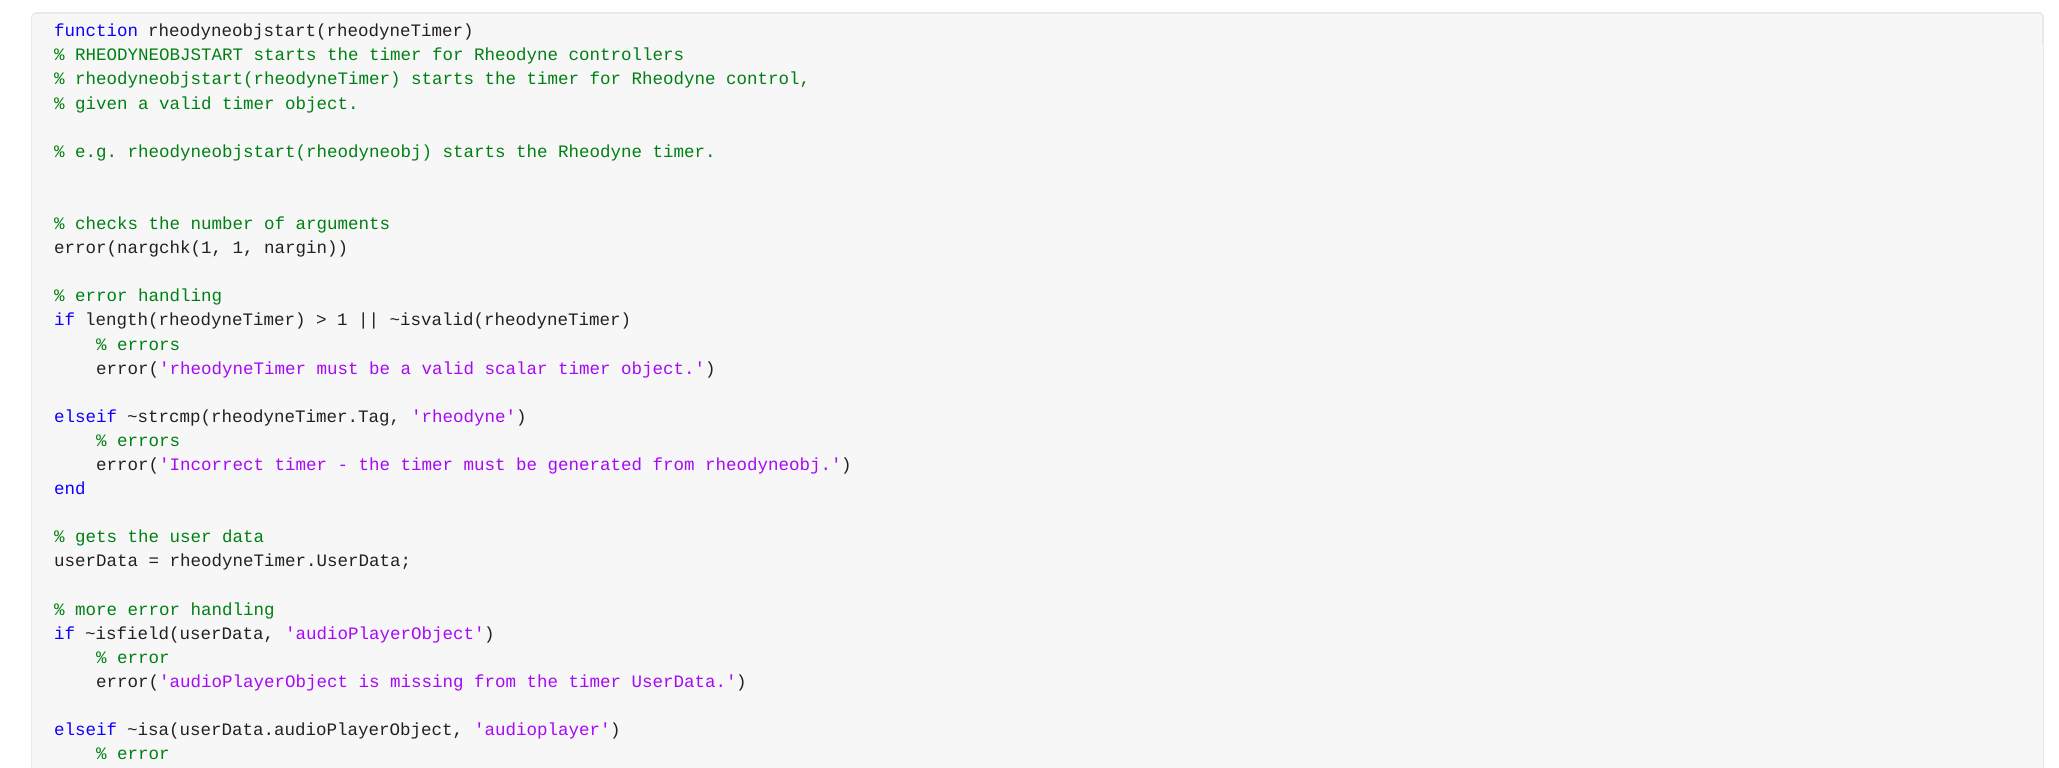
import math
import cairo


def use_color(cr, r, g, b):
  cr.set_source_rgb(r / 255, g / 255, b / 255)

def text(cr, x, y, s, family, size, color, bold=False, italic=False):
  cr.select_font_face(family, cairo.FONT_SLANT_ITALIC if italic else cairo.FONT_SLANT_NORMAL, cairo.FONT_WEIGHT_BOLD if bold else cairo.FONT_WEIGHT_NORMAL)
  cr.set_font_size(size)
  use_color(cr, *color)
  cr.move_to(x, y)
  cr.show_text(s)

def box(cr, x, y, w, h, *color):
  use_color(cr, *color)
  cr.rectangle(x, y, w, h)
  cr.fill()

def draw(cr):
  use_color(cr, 255, 255, 255)
  cr.paint()
  use_color(cr, 247, 247, 247)
  cr.new_path()
  cr.move_to(36, 13)
  cr.line_to(2039, 13)
  cr.curve_to(2042, 13, 2044, 15, 2044, 18)
  cr.line_to(2044, 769)
  cr.line_to(31, 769)
  cr.line_to(31, 18)
  cr.curve_to(31, 15, 33, 13, 36, 13)
  cr.close_path()
  cr.fill()
  use_color(cr, 233, 233, 233)
  cr.set_fill_rule(cairo.FILL_RULE_EVEN_ODD)
  cr.new_path()
  cr.move_to(36, 12)
  cr.line_to(2039, 12)
  cr.curve_to(2042, 12, 2044, 15, 2044, 18)
  cr.line_to(2044, 44)
  cr.line_to(31, 44)
  cr.line_to(31, 18)
  cr.curve_to(31, 15, 33, 12, 36, 12)
  cr.close_path()
  cr.move_to(36, 14)
  cr.line_to(2040, 14)
  cr.line_to(2042, 16)
  cr.line_to(2042, 44)
  cr.line_to(32, 44)
  cr.line_to(32, 18)
  cr.curve_to(32, 15, 34, 14, 36, 14)
  cr.close_path()
  cr.fill()
  box(cr, 2043, 44, 1, 724, 233, 233, 233)
  box(cr, 31, 44, 1, 724, 233, 233, 233)
  text(cr, 54, 36, "function", "Liberation Mono", 17.5, (14, 0, 255))
  text(cr, 148, 36, "rheodyneobjstart(rheodyneTimer)", "Liberation Mono", 17.5, (33, 33, 33))
  text(cr, 54, 60, "% RHEODYNEOBJSTART starts the timer for Rheodyne controllers", "Liberation Mono", 17.5, (0, 128, 19))
  text(cr, 54, 84, "% rheodyneobjstart(rheodyneTimer) starts the timer for Rheodyne control,", "Liberation Mono", 17.5, (0, 128, 19))
  text(cr, 54, 109, "% given a valid timer object.", "Liberation Mono", 17.5, (0, 128, 19))
  text(cr, 54, 157, "% e.g. rheodyneobjstart(rheodyneobj) starts the Rheodyne timer.", "Liberation Mono", 17.5, (0, 128, 19))
  text(cr, 54, 229, "% checks the number of arguments", "Liberation Mono", 17.5, (0, 128, 19))
  text(cr, 54, 253, "error(nargchk(1, 1, nargin))", "Liberation Mono", 17.5, (33, 33, 33))
  text(cr, 54, 301, "% error handling", "Liberation Mono", 17.5, (0, 128, 19))
  text(cr, 54, 325, "if", "Liberation Mono", 17.5, (14, 0, 255))
  text(cr, 85, 325, "length(rheodyneTimer) > 1 || ~isvalid(rheodyneTimer)", "Liberation Mono", 17.5, (33, 33, 33))
  text(cr, 96, 350, "% errors", "Liberation Mono", 17.5, (0, 128, 19))
  text(cr, 96, 374, "error(", "Liberation Mono", 17.5, (33, 33, 33))
  text(cr, 159, 374, "'rheodyneTimer must be a valid scalar timer object.'", "Liberation Mono", 17.5, (167, 9, 245))
  text(cr, 705, 374, ")", "Liberation Mono", 17.5, (33, 33, 33))
  text(cr, 54, 422, "elseif", "Liberation Mono", 17.5, (14, 0, 255))
  text(cr, 127, 422, "~strcmp(rheodyneTimer.Tag,", "Liberation Mono", 17.5, (33, 33, 33))
  text(cr, 411, 422, "'rheodyne'", "Liberation Mono", 17.5, (167, 9, 245))
  text(cr, 516, 422, ")", "Liberation Mono", 17.5, (33, 33, 33))
  text(cr, 96, 446, "% errors", "Liberation Mono", 17.5, (0, 128, 19))
  text(cr, 96, 470, "error(", "Liberation Mono", 17.5, (33, 33, 33))
  text(cr, 159, 470, "'Incorrect timer - the timer must be generated from rheodyneobj.'", "Liberation Mono", 17.5, (167, 9, 245))
  text(cr, 841, 470, ")", "Liberation Mono", 17.5, (33, 33, 33))
  text(cr, 54, 494, "end", "Liberation Mono", 17.5, (14, 0, 255))
  text(cr, 54, 542, "% gets the user data", "Liberation Mono", 17.5, (0, 128, 19))
  text(cr, 54, 566, "userData = rheodyneTimer.UserData;", "Liberation Mono", 17.5, (33, 33, 33))
  text(cr, 54, 615, "% more error handling", "Liberation Mono", 17.5, (0, 128, 19))
  text(cr, 54, 639, "if", "Liberation Mono", 17.5, (14, 0, 255))
  text(cr, 85, 639, "~isfield(userData,", "Liberation Mono", 17.5, (33, 33, 33))
  text(cr, 285, 639, "'audioPlayerObject'", "Liberation Mono", 17.5, (167, 9, 245))
  text(cr, 484, 639, ")", "Liberation Mono", 17.5, (33, 33, 33))
  text(cr, 96, 663, "% error", "Liberation Mono", 17.5, (0, 128, 19))
  text(cr, 96, 687, "error(", "Liberation Mono", 17.5, (33, 33, 33))
  text(cr, 159, 687, "'audioPlayerObject is missing from the timer UserData.'", "Liberation Mono", 17.5, (167, 9, 245))
  text(cr, 736, 687, ")", "Liberation Mono", 17.5, (33, 33, 33))
  text(cr, 54, 735, "elseif", "Liberation Mono", 17.5, (14, 0, 255))
  text(cr, 127, 735, "~isa(userData.audioPlayerObject,", "Liberation Mono", 17.5, (33, 33, 33))
  text(cr, 474, 735, "'audioplayer'", "Liberation Mono", 17.5, (167, 9, 245))
  text(cr, 610, 735, ")", "Liberation Mono", 17.5, (33, 33, 33))
  text(cr, 96, 759, "% error", "Liberation Mono", 17.5, (0, 128, 19))


surface = cairo.ImageSurface(cairo.FORMAT_RGB24, 2059, 768)
cr = cairo.Context(surface)
options = cairo.FontOptions()
options.set_hint_metrics(cairo.HINT_METRICS_OFF)
options.set_hint_style(cairo.HINT_STYLE_NONE)
cr.set_font_options(options)
cr.set_miter_limit(4)
draw(cr)
surface.write_to_png("out.png")
